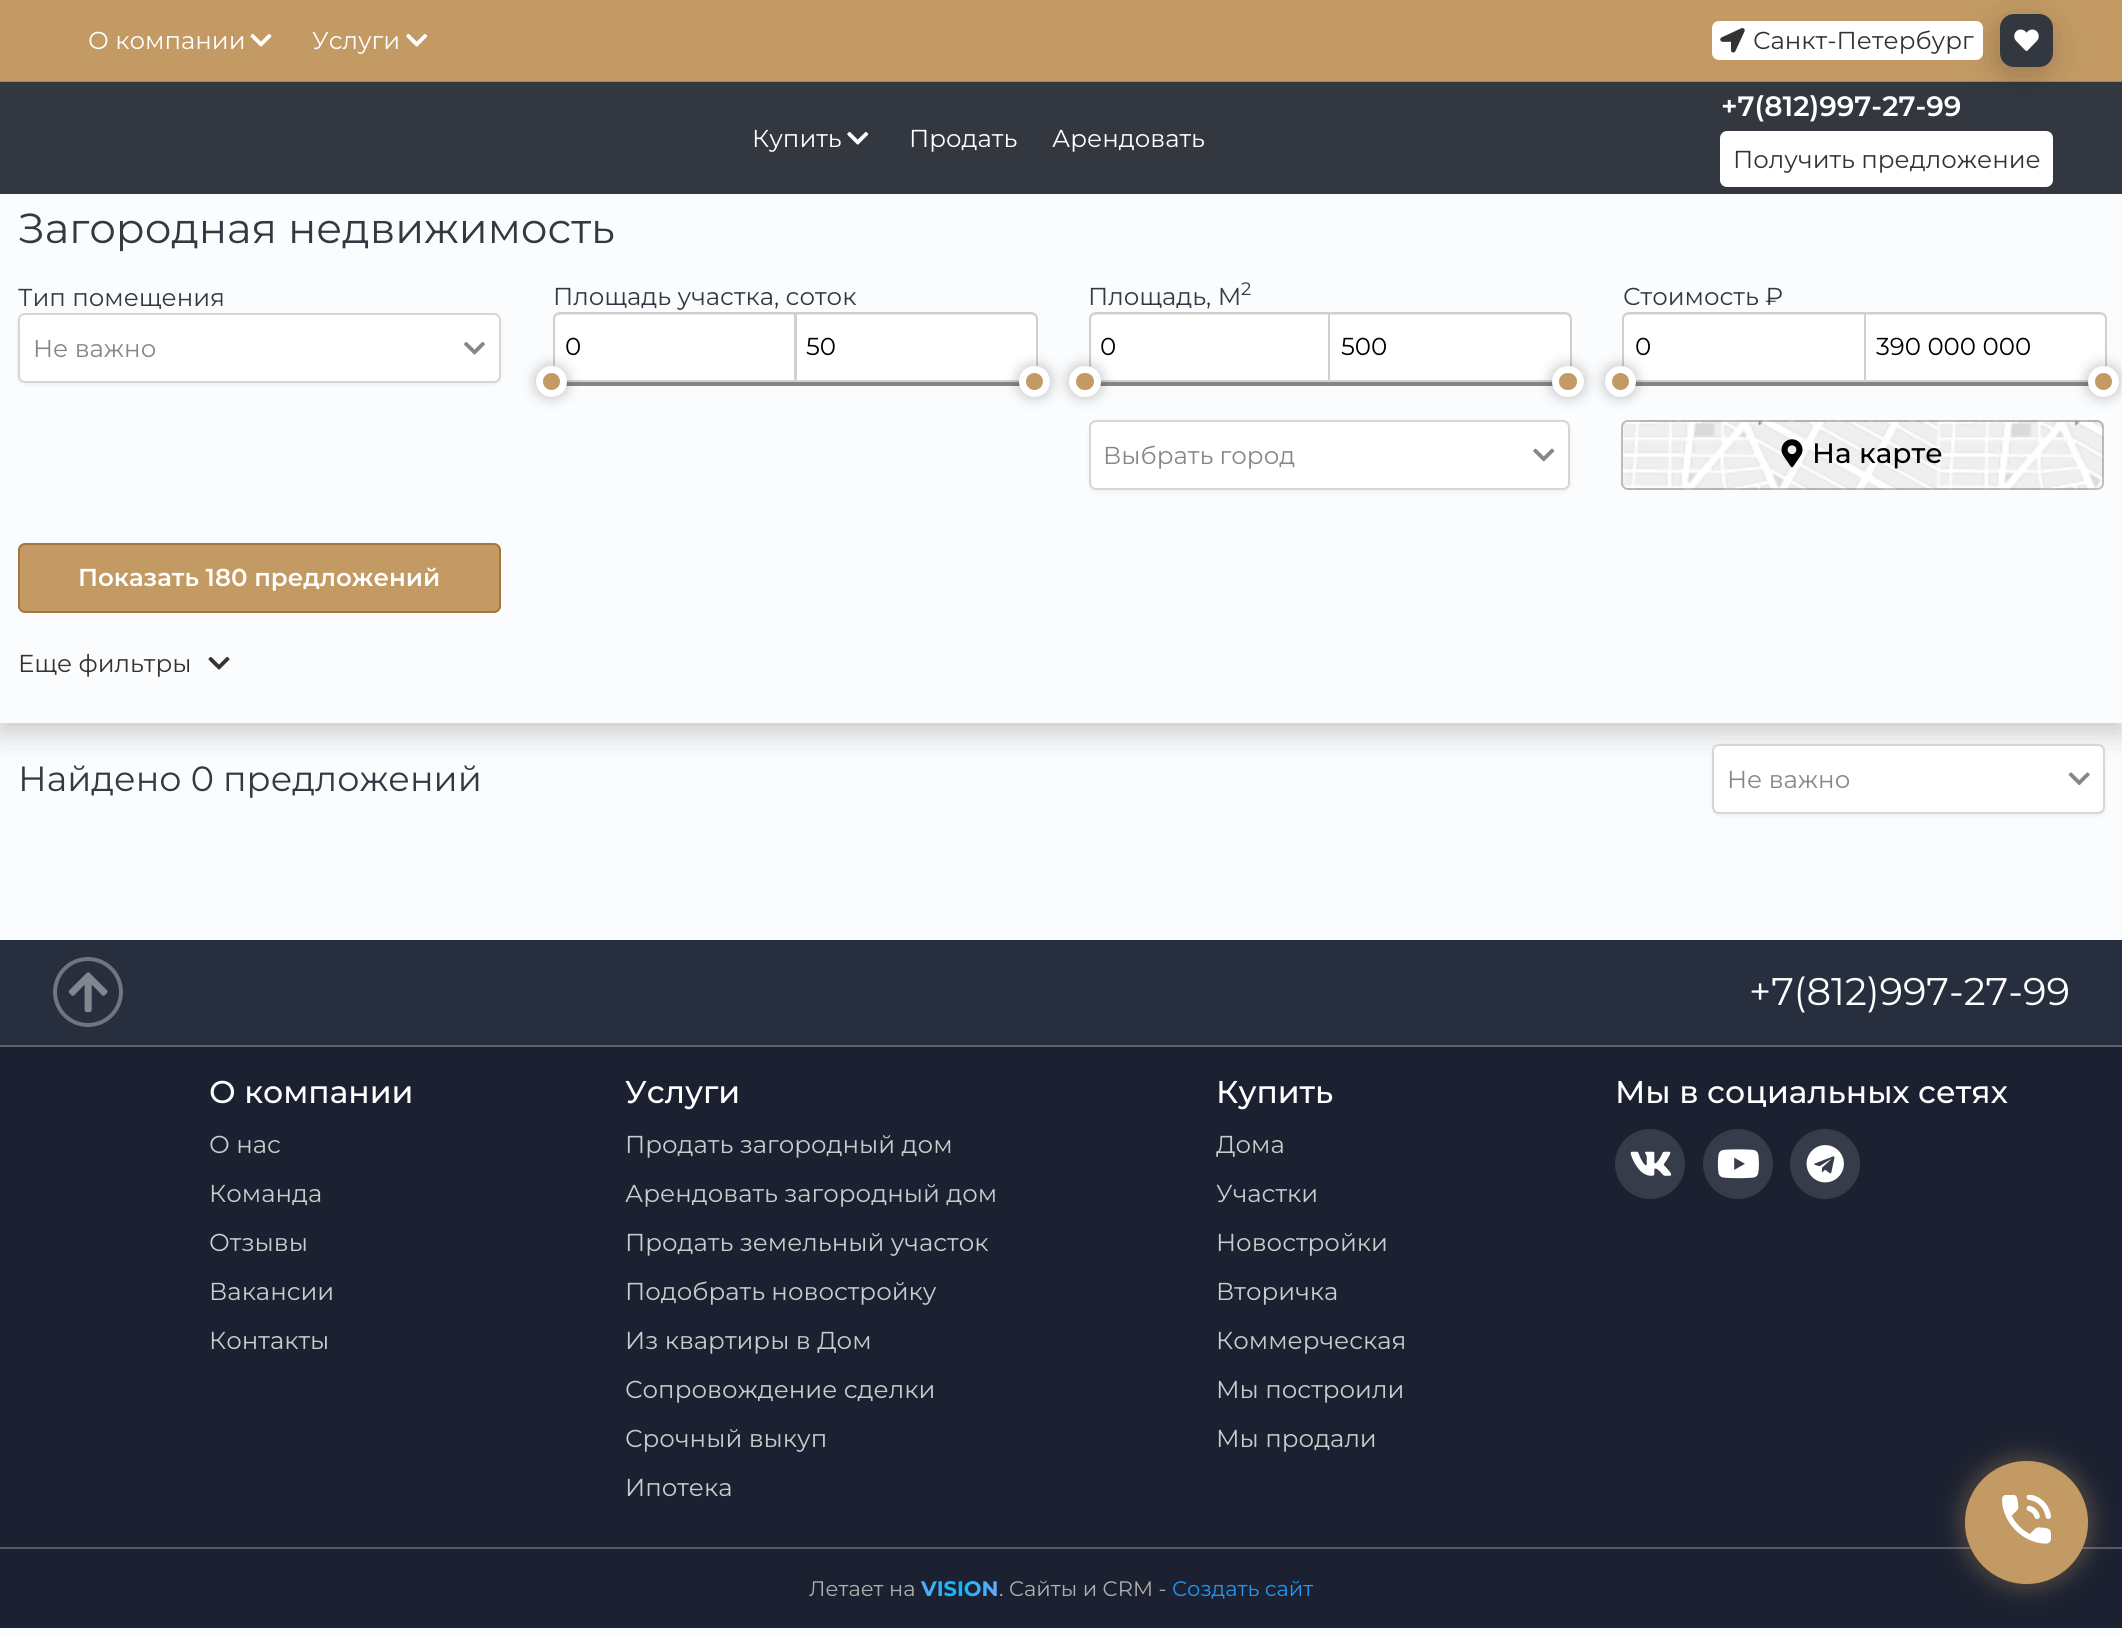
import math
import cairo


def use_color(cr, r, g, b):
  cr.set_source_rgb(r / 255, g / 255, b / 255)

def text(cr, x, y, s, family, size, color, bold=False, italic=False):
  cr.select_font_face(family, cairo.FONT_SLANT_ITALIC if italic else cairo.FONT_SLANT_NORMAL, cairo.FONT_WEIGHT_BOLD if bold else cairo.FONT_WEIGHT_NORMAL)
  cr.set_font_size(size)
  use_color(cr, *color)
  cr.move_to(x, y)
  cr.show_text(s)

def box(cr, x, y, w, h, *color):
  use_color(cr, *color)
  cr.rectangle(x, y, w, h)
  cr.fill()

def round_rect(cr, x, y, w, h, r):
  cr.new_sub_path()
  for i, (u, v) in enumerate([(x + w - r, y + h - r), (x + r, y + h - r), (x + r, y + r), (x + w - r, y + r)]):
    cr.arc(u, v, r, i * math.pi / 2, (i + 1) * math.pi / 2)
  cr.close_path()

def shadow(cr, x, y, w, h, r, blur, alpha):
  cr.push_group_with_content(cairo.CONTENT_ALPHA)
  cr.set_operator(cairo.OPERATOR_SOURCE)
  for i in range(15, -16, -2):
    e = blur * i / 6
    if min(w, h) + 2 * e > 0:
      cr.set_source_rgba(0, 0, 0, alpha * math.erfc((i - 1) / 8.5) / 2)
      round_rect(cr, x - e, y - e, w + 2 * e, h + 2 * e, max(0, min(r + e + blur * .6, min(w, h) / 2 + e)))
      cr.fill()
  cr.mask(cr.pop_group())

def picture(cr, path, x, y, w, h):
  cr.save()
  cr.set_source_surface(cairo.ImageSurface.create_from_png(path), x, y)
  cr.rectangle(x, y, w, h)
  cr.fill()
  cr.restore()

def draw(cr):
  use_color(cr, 251, 252, 253)
  cr.paint()
  box(cr, 0, 0, 2122, 81, 195, 154, 100)
  box(cr, 0, 81, 2122, 1, 166, 133, 90)
  picture(cr, "img_01.png", 250, 33, 22, 14)
  picture(cr, "img_02.png", 406, 33, 22, 14)
  cr.save()
  cr.set_fill_rule(cairo.FILL_RULE_EVEN_ODD)
  cr.new_path()
  cr.move_to(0, 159)
  cr.line_to(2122, 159)
  cr.line_to(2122, 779)
  cr.line_to(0, 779)
  cr.close_path()
  cr.move_to(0, 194)
  cr.line_to(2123, 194)
  cr.line_to(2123, 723)
  cr.line_to(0, 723)
  cr.close_path()
  cr.clip()
  use_color(cr, 0, 0, 0)
  shadow(cr, 0, 205, 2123, 528, 0, 15, 0.2)
  cr.restore()
  box(cr, 0, 83, 2122, 111, 51, 55, 64)
  box(cr, 0, 82, 2122, 1, 51, 54, 61)
  use_color(cr, 21, 21, 21)
  shadow(cr, 1997, 23, 52, 52, 14, 17.5, 0.24)
  use_color(cr, 255, 255, 255)
  round_rect(cr, 1712, 21, 271, 39, 7)
  cr.fill()
  picture(cr, "img_03.png", 1720, 28, 25, 25)
  use_color(cr, 51, 55, 64)
  round_rect(cr, 2000, 14, 53, 53, 14)
  cr.fill()
  picture(cr, "img_04.png", 2014, 29, 25, 22)
  picture(cr, "img_05.png", 847, 131, 22, 14)
  use_color(cr, 255, 255, 255)
  round_rect(cr, 1720, 131, 333, 56, 7)
  cr.fill()
  use_color(cr, 0, 0, 0)
  shadow(cr, 18, 315, 483, 70, 7, 2, 0.05)
  use_color(cr, 255, 255, 255)
  round_rect(cr, 18, 313, 483, 70, 7)
  cr.fill()
  round_rect(cr, 19, 314, 481, 68, 6)
  cr.set_source_rgba(0.2, 0.2, 0.2, 0.2)
  cr.stroke()
  picture(cr, "img_06.png", 464, 341, 21, 14)
  use_color(cr, 255, 255, 255)
  cr.new_path()
  cr.move_to(560, 312)
  cr.line_to(796, 312)
  cr.line_to(796, 382)
  cr.line_to(560, 382)
  cr.curve_to(556, 382, 553, 379, 553, 375)
  cr.line_to(553, 319)
  cr.curve_to(553, 315, 556, 312, 560, 312)
  cr.close_path()
  cr.fill()
  use_color(cr, 230, 230, 230)
  cr.new_path()
  cr.move_to(560, 315)
  cr.line_to(794, 315)
  cr.line_to(794, 380)
  cr.line_to(795, 380)
  cr.line_to(795, 313)
  cr.line_to(560, 313)
  cr.curve_to(556, 313, 555, 317, 555, 320)
  cr.curve_to(555, 317, 557, 315, 560, 315)
  cr.close_path()
  cr.fill()
  cr.new_path()
  cr.move_to(560, 313)
  cr.line_to(795, 313)
  cr.line_to(795, 381)
  cr.line_to(560, 381)
  cr.curve_to(556.5, 381, 554, 378.5, 554, 375)
  cr.line_to(554, 319)
  cr.curve_to(554, 315.5, 556.5, 313, 560, 313)
  cr.close_path()
  use_color(cr, 208, 208, 208)
  cr.stroke()
  use_color(cr, 255, 255, 255)
  cr.new_path()
  cr.move_to(795, 312)
  cr.line_to(1031, 312)
  cr.curve_to(1035, 312, 1038, 315, 1038, 319)
  cr.line_to(1038, 375)
  cr.curve_to(1038, 379, 1035, 382, 1031, 382)
  cr.line_to(795, 382)
  cr.close_path()
  cr.fill()
  use_color(cr, 230, 230, 230)
  cr.new_path()
  cr.move_to(796, 315)
  cr.line_to(1031, 315)
  cr.curve_to(1034, 315, 1036, 317, 1036, 320)
  cr.curve_to(1036, 317, 1035, 313, 1031, 313)
  cr.line_to(796, 313)
  cr.close_path()
  cr.fill()
  cr.new_path()
  cr.move_to(796, 313)
  cr.line_to(1031, 313)
  cr.curve_to(1034.5, 313, 1037, 315.5, 1037, 319)
  cr.line_to(1037, 375)
  cr.curve_to(1037, 378.5, 1034.5, 381, 1031, 381)
  cr.line_to(796, 381)
  cr.close_path()
  use_color(cr, 208, 208, 208)
  cr.stroke()
  box(cr, 566, 382, 454, 4, 134, 134, 134)
  use_color(cr, 0, 0, 0)
  shadow(cr, 536, 366, 31, 31, 15.5, 7, 0.25)
  use_color(cr, 195, 154, 100)
  cr.arc(551.5, 381.5, 12, 0, 2 * math.pi)
  cr.fill_preserve()
  use_color(cr, 255, 255, 255)
  cr.set_line_width(7)
  cr.stroke()
  use_color(cr, 0, 0, 0)
  shadow(cr, 1019, 366, 31, 31, 15.5, 7, 0.25)
  use_color(cr, 195, 154, 100)
  cr.arc(1034.5, 381.5, 12, 0, 2 * math.pi)
  cr.fill_preserve()
  use_color(cr, 255, 255, 255)
  cr.stroke()
  cr.new_path()
  cr.move_to(1096, 312)
  cr.line_to(1330, 312)
  cr.line_to(1330, 382)
  cr.line_to(1096, 382)
  cr.curve_to(1092, 382, 1089, 379, 1089, 375)
  cr.line_to(1089, 319)
  cr.curve_to(1089, 315, 1092, 312, 1096, 312)
  cr.close_path()
  cr.fill()
  use_color(cr, 230, 230, 230)
  cr.new_path()
  cr.move_to(1096, 315)
  cr.line_to(1328, 315)
  cr.line_to(1328, 313)
  cr.line_to(1095, 313)
  cr.curve_to(1091, 313, 1090, 317, 1090, 320)
  cr.curve_to(1090, 317, 1093, 315, 1096, 315)
  cr.close_path()
  cr.fill()
  cr.new_path()
  cr.move_to(1096, 313)
  cr.line_to(1329, 313)
  cr.line_to(1329, 381)
  cr.line_to(1096, 381)
  cr.curve_to(1092.5, 381, 1090, 378.5, 1090, 375)
  cr.line_to(1090, 319)
  cr.curve_to(1090, 315.5, 1092.5, 313, 1096, 313)
  cr.close_path()
  use_color(cr, 208, 208, 208)
  cr.set_line_width(2)
  cr.stroke()
  use_color(cr, 255, 255, 255)
  cr.new_path()
  cr.move_to(1328, 312)
  cr.line_to(1565, 312)
  cr.curve_to(1569, 312, 1572, 315, 1572, 319)
  cr.line_to(1572, 375)
  cr.curve_to(1572, 379, 1569, 382, 1565, 382)
  cr.line_to(1328, 382)
  cr.close_path()
  cr.fill()
  use_color(cr, 230, 230, 230)
  cr.new_path()
  cr.move_to(1330, 315)
  cr.line_to(1564, 315)
  cr.curve_to(1567, 315, 1570, 317, 1570, 320)
  cr.curve_to(1570, 317, 1569, 313, 1565, 313)
  cr.line_to(1330, 313)
  cr.close_path()
  cr.fill()
  cr.new_path()
  cr.move_to(1329, 313)
  cr.line_to(1565, 313)
  cr.curve_to(1568.5, 313, 1571, 315.5, 1571, 319)
  cr.line_to(1571, 375)
  cr.curve_to(1571, 378.5, 1568.5, 381, 1565, 381)
  cr.line_to(1329, 381)
  cr.close_path()
  use_color(cr, 208, 208, 208)
  cr.stroke()
  box(cr, 1100, 382, 453, 4, 134, 134, 134)
  use_color(cr, 0, 0, 0)
  shadow(cr, 1069, 366, 32, 31, 15.5, 7, 0.25)
  use_color(cr, 195, 154, 100)
  round_rect(cr, 1072.5, 369.5, 25, 24, 12)
  cr.fill_preserve()
  use_color(cr, 255, 255, 255)
  cr.set_line_width(7)
  cr.stroke()
  use_color(cr, 0, 0, 0)
  shadow(cr, 1552, 366, 32, 31, 15.5, 7, 0.25)
  use_color(cr, 195, 154, 100)
  round_rect(cr, 1555.5, 369.5, 25, 24, 12)
  cr.fill_preserve()
  use_color(cr, 255, 255, 255)
  cr.stroke()
  cr.new_path()
  cr.move_to(1629, 312)
  cr.line_to(1866, 312)
  cr.line_to(1866, 382)
  cr.line_to(1629, 382)
  cr.curve_to(1625, 382, 1622, 379, 1622, 375)
  cr.line_to(1622, 319)
  cr.curve_to(1622, 315, 1625, 312, 1629, 312)
  cr.close_path()
  cr.fill()
  use_color(cr, 230, 230, 230)
  cr.new_path()
  cr.move_to(1629, 315)
  cr.line_to(1864, 315)
  cr.line_to(1864, 313)
  cr.line_to(1629, 313)
  cr.curve_to(1625, 313, 1624, 317, 1624, 320)
  cr.curve_to(1624, 317, 1626, 315, 1629, 315)
  cr.close_path()
  cr.fill()
  cr.new_path()
  cr.move_to(1629, 313)
  cr.line_to(1865, 313)
  cr.line_to(1865, 381)
  cr.line_to(1629, 381)
  cr.curve_to(1625.5, 381, 1623, 378.5, 1623, 375)
  cr.line_to(1623, 319)
  cr.curve_to(1623, 315.5, 1625.5, 313, 1629, 313)
  cr.close_path()
  use_color(cr, 208, 208, 208)
  cr.set_line_width(2)
  cr.stroke()
  use_color(cr, 255, 255, 255)
  cr.new_path()
  cr.move_to(1864, 312)
  cr.line_to(2100, 312)
  cr.curve_to(2104, 312, 2107, 315, 2107, 319)
  cr.line_to(2107, 375)
  cr.curve_to(2107, 379, 2104, 382, 2100, 382)
  cr.line_to(1864, 382)
  cr.close_path()
  cr.fill()
  use_color(cr, 230, 230, 230)
  cr.new_path()
  cr.move_to(1866, 315)
  cr.line_to(2100, 315)
  cr.curve_to(2103, 315, 2105, 317, 2105, 320)
  cr.curve_to(2105, 317, 2104, 313, 2100, 313)
  cr.line_to(1866, 313)
  cr.close_path()
  cr.fill()
  cr.new_path()
  cr.move_to(1865, 313)
  cr.line_to(2100, 313)
  cr.curve_to(2103.5, 313, 2106, 315.5, 2106, 319)
  cr.line_to(2106, 375)
  cr.curve_to(2106, 378.5, 2103.5, 381, 2100, 381)
  cr.line_to(1865, 381)
  cr.close_path()
  use_color(cr, 208, 208, 208)
  cr.stroke()
  box(cr, 1635, 382, 454, 4, 134, 134, 134)
  use_color(cr, 0, 0, 0)
  shadow(cr, 1605, 366, 31, 31, 15.5, 7, 0.25)
  use_color(cr, 195, 154, 100)
  cr.arc(1620.5, 381.5, 12, 0, 2 * math.pi)
  cr.fill_preserve()
  use_color(cr, 255, 255, 255)
  cr.set_line_width(7)
  cr.stroke()
  use_color(cr, 0, 0, 0)
  shadow(cr, 2088, 366, 31, 31, 15.5, 7, 0.25)
  use_color(cr, 195, 154, 100)
  cr.arc(2103.5, 381.5, 12, 0, 2 * math.pi)
  cr.fill_preserve()
  use_color(cr, 255, 255, 255)
  cr.stroke()
  use_color(cr, 0, 0, 0)
  shadow(cr, 1089, 422, 481, 70, 7, 2, 0.05)
  use_color(cr, 255, 255, 255)
  round_rect(cr, 1089, 420, 481, 70, 7)
  cr.fill()
  round_rect(cr, 1090, 421, 479, 68, 6)
  cr.set_source_rgba(0.2, 0.2, 0.2, 0.2)
  cr.set_line_width(2)
  cr.stroke()
  picture(cr, "img_07.png", 1533, 448, 22, 14)
  picture(cr, "img_08.png", 1622, 420, 482, 70)
  round_rect(cr, 1622, 421, 481, 68, 6)
  cr.set_source_rgba(0.2, 0.2, 0.2, 0.31)
  cr.stroke()
  picture(cr, "img_09.png", 1781, 439, 22, 29)
  use_color(cr, 195, 154, 100)
  round_rect(cr, 19, 544, 481, 68, 6)
  cr.fill_preserve()
  use_color(cr, 165, 118, 57)
  cr.stroke()
  picture(cr, "img_10.png", 208, 656, 22, 14)
  use_color(cr, 0, 0, 0)
  shadow(cr, 1712, 746, 393, 70, 7, 2, 0.05)
  use_color(cr, 255, 255, 255)
  round_rect(cr, 1712, 744, 393, 70, 7)
  cr.fill()
  round_rect(cr, 1713, 745, 391, 68, 6)
  cr.set_source_rgba(0.2, 0.2, 0.2, 0.2)
  cr.stroke()
  picture(cr, "img_11.png", 2068, 772, 22, 13)
  box(cr, 0, 940, 2122, 105, 39, 46, 61)
  box(cr, 0, 1045, 2122, 2, 93, 98, 110)
  cr.arc(88, 992, 33, 0, 2 * math.pi)
  use_color(cr, 112, 117, 127)
  cr.set_line_width(4)
  cr.stroke()
  picture(cr, "img_12.png", 68, 972, 40, 41)
  box(cr, 0, 1047, 2122, 500, 27, 33, 48)
  box(cr, 0, 1547, 2122, 2, 84, 89, 100)
  box(cr, 0, 1549, 2122, 79, 27, 33, 48)
  use_color(cr, 195, 154, 100)
  shadow(cr, 1962, 1458, 129, 129, 64.5, 11.5, 0.37)
  use_color(cr, 195, 154, 100)
  cr.arc(2026.5, 1522.5, 61.5, 0, 2 * math.pi)
  cr.fill()
  picture(cr, "img_13.png", 2002, 1495, 49, 49)
  use_color(cr, 54, 60, 73)
  cr.arc(1650, 1164, 35, 0, 2 * math.pi)
  cr.fill()
  picture(cr, "img_14.png", 1630, 1151, 42, 25)
  cr.arc(1738, 1164, 35, 0, 2 * math.pi)
  cr.fill()
  picture(cr, "img_15.png", 1717, 1149, 42, 30)
  cr.arc(1825, 1164, 35, 0, 2 * math.pi)
  cr.fill()
  picture(cr, "img_16.png", 1806, 1145, 38, 38)
  text(cr, 88, 49, "О компании", "Montserrat", 24.5, (255, 255, 255))
  text(cr, 312, 49, "Услуги", "Montserrat", 24.5, (255, 255, 255))
  text(cr, 1753, 49, "Санкт-Петербург", "Montserrat", 24.5, (51, 51, 51))
  text(cr, 752, 147, "Купить", "Montserrat", 24.5, (255, 255, 255))
  text(cr, 909, 147, "Продать", "Montserrat", 24.5, (255, 255, 255))
  text(cr, 1052, 147, "Арендовать", "Montserrat", 24.5, (255, 255, 255))
  text(cr, 1721, 116, "+7(812)997-27-99", "Montserrat SemiBold", 28, (255, 255, 255))
  text(cr, 1733, 168, "Получить предложение", "Montserrat", 24.5, (51, 51, 51))
  text(cr, 18, 243, "Загородная недвижимость", "Montserrat", 42, (50, 57, 65))
  text(cr, 18, 306, "Тип помещения", "Montserrat", 24.5, (50, 57, 65))
  text(cr, 33, 357, "Не важно", "Montserrat", 24.5, (135, 135, 135))
  text(cr, 553, 305, "Площадь участка, соток", "Montserrat", 24.5, (50, 57, 65))
  text(cr, 565, 355, "0", "Montserrat", 24.5, (0, 0, 0))
  text(cr, 806, 355, "50", "Montserrat", 24.5, (0, 0, 0))
  text(cr, 1088, 305, "Площадь, М", "Montserrat", 24.5, (50, 57, 65))
  text(cr, 1241, 295, "2", "Montserrat", 18, (50, 57, 65))
  text(cr, 1100, 355, "0", "Montserrat", 24.5, (0, 0, 0))
  text(cr, 1341, 355, "500", "Montserrat", 24.5, (0, 0, 0))
  text(cr, 1623, 305, "Стоимость ₽", "Montserrat", 24.5, (50, 57, 65))
  text(cr, 1635, 355, "0", "Montserrat", 24.5, (0, 0, 0))
  text(cr, 1876, 355, "390 000 000", "Montserrat", 24.5, (0, 0, 0))
  text(cr, 1103, 464, "Выбрать город", "Montserrat", 24.5, (135, 135, 135))
  text(cr, 1812, 463, "На карте", "Montserrat Medium", 28, (0, 0, 0))
  text(cr, 78, 586, "Показать 180 предложений", "Montserrat SemiBold", 24.5, (255, 255, 255))
  text(cr, 18, 672, "Еще фильтры", "Montserrat", 24.5, (51, 51, 51))
  text(cr, 18, 791, "Найдено 0 предложений", "Montserrat", 35, (50, 57, 65))
  text(cr, 1727, 788, "Не важно", "Montserrat", 24.5, (135, 135, 135))
  text(cr, 1749, 1005, "+7(812)997-27-99", "Montserrat", 38.5, (255, 255, 255))
  text(cr, 209, 1103, "О компании", "Montserrat Medium", 31.5, (255, 255, 255))
  text(cr, 209, 1153, "О нас", "Montserrat", 24.5, (203, 203, 203))
  text(cr, 209, 1202, "Команда", "Montserrat", 24.5, (203, 203, 203))
  text(cr, 209, 1251, "Отзывы", "Montserrat", 24.5, (203, 203, 203))
  text(cr, 209, 1300, "Вакансии", "Montserrat", 24.5, (203, 203, 203))
  text(cr, 209, 1349, "Контакты", "Montserrat", 24.5, (203, 203, 203))
  text(cr, 625, 1103, "Услуги", "Montserrat Medium", 31.5, (255, 255, 255))
  text(cr, 625, 1153, "Продать загородный дом", "Montserrat", 24.5, (203, 203, 203))
  text(cr, 625, 1202, "Арендовать загородный дом", "Montserrat", 24.5, (203, 203, 203))
  text(cr, 625, 1251, "Продать земельный участок", "Montserrat", 24.5, (203, 203, 203))
  text(cr, 625, 1300, "Подобрать новостройку", "Montserrat", 24.5, (203, 203, 203))
  text(cr, 625, 1349, "Из квартиры в Дом", "Montserrat", 24.5, (203, 203, 203))
  text(cr, 625, 1398, "Сопровождение сделки", "Montserrat", 24.5, (203, 203, 203))
  text(cr, 625, 1447, "Срочный выкуп", "Montserrat", 24.5, (203, 203, 203))
  text(cr, 625, 1496, "Ипотека", "Montserrat", 24.5, (203, 203, 203))
  text(cr, 1216, 1103, "Купить", "Montserrat Medium", 31.5, (255, 255, 255))
  text(cr, 1216, 1153, "Дома", "Montserrat", 24.5, (203, 203, 203))
  text(cr, 1216, 1202, "Участки", "Montserrat", 24.5, (203, 203, 203))
  text(cr, 1216, 1251, "Новостройки", "Montserrat", 24.5, (203, 203, 203))
  text(cr, 1216, 1300, "Вторичка", "Montserrat", 24.5, (203, 203, 203))
  text(cr, 1216, 1349, "Коммерческая", "Montserrat", 24.5, (203, 203, 203))
  text(cr, 1216, 1398, "Мы построили", "Montserrat", 24.5, (203, 203, 203))
  text(cr, 1216, 1447, "Мы продали", "Montserrat", 24.5, (203, 203, 203))
  text(cr, 1615, 1103, "Мы в социальных сетях", "Montserrat Medium", 31.5, (255, 255, 255))
  text(cr, 809, 1596, "Летает на", "Montserrat", 21, (175, 175, 175))
  cr.select_font_face("Montserrat", cairo.FONT_SLANT_NORMAL, cairo.FONT_WEIGHT_BOLD)
  gradient = cairo.RadialGradient(0, 0, 0, 0, 0, 1)
  gradient.set_matrix(cairo.Matrix(1 / 42, 0, 0, 1 / 1546, -1 * 956 / 42, -1 * 1590 / 1546))
  gradient.add_color_stop_rgba(0, 0.027, 0.729, 1, 1)
  gradient.add_color_stop_rgba(1, 0.4, 0.663, 0.984, 1)
  cr.set_source(gradient)
  cr.move_to(921, 1596)
  cr.show_text("VISION")
  text(cr, 999, 1596, ". Cайты и CRM -", "Montserrat", 21, (175, 175, 175))
  text(cr, 1172, 1596, "Создать сайт", "Montserrat", 21, (33, 150, 243))


surface = cairo.ImageSurface(cairo.FORMAT_RGB24, 2122, 1636)
cr = cairo.Context(surface)
options = cairo.FontOptions()
options.set_hint_metrics(cairo.HINT_METRICS_OFF)
options.set_hint_style(cairo.HINT_STYLE_NONE)
cr.set_font_options(options)
cr.set_miter_limit(4)
draw(cr)
surface.write_to_png("out.png")
